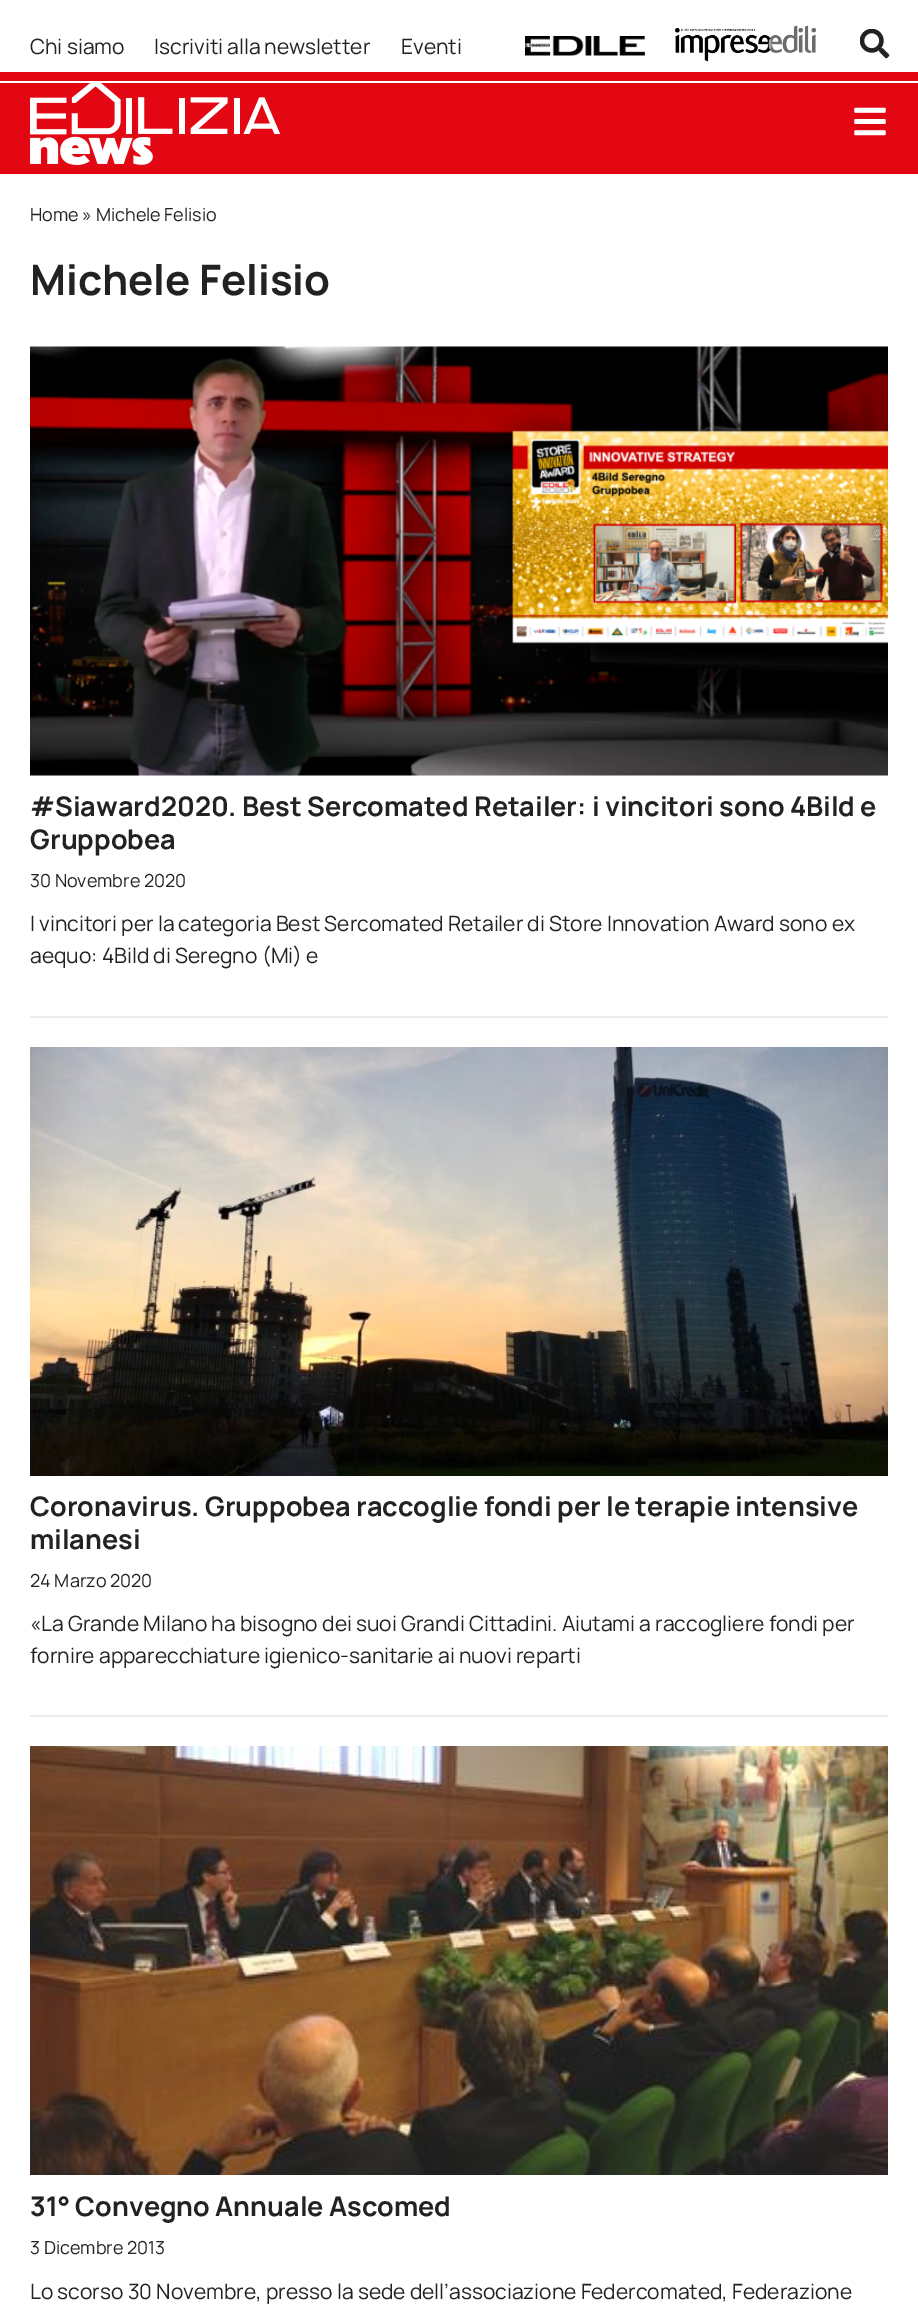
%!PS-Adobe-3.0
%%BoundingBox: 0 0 918 2313
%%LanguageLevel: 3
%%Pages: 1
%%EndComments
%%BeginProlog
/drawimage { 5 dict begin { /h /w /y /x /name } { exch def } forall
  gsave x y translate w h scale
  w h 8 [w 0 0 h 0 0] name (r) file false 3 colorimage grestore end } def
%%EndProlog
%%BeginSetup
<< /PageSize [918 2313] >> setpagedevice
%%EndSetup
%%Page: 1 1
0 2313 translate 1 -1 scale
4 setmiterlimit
1 setgray
0 0 918 2313 rectfill
(images/1.raw) 525 36 120 20 drawimage
(images/2.raw) 675 25 141 37 drawimage
(images/3.raw) 860 29 30 30 drawimage
0.89 0.024 0.075 setrgbcolor
0 72 918 9 rectfill
0 83 918 91 rectfill
(images/4.raw) 30 83 251 82 drawimage
(images/5.raw) 854 107 32 29 drawimage
0.929 0.914 0.91 setrgbcolor
30 1016 858 2 rectfill
(images/6.raw) 30 346 858 430 drawimage
30 1715 858 2 rectfill
(images/7.raw) 30 1047 858 429 drawimage
(images/8.raw) 30 1746 858 429 drawimage
/Manrope-Regular [21 0 0 -21 0 0] selectfont
0.133 setgray
30 54 moveto (Chi siamo) show
154 54 moveto (Iscriviti alla newsletter) show
401 54 moveto (Eventi) show
/Manrope-Regular [18 0 0 -18 0 0] selectfont
30 221 moveto (Home » Michele Felisio) show
/Manrope-Bold [42 0 0 -42 0 0] selectfont
30 295 moveto (Michele Felisio) show
/Manrope-Bold [27 0 0 -27 0 0] selectfont
30 816 moveto (#Siaward2020. Best Sercomated Retailer: i vincitori sono 4Bild e) show
30 849 moveto (Gruppobea) show
/Manrope-Regular [18 0 0 -18 0 0] selectfont
30 887 moveto (30 Novembre 2020) show
/Manrope-Regular [21 0 0 -21 0 0] selectfont
30 931 moveto (I vincitori per la categoria Best Sercomated Retailer di Store Innovation Award sono ex) show
30 963 moveto (aequo: 4Bild di Seregno \(Mi\) e) show
/Manrope-Bold [27 0 0 -27 0 0] selectfont
30 1516 moveto (Coronavirus. Gruppobea raccoglie fondi per le terapie intensive) show
30 1549 moveto (milanesi) show
/Manrope-Regular [18 0 0 -18 0 0] selectfont
30 1587 moveto (24 Marzo 2020) show
/Manrope-Regular [21 0 0 -21 0 0] selectfont
30 1631 moveto («La Grande Milano ha bisogno dei suoi Grandi Cittadini. Aiutami a raccogliere fondi per) show
30 1663 moveto (fornire apparecchiature igienico-sanitarie ai nuovi reparti) show
/Manrope-Bold [27 0 0 -27 0 0] selectfont
30 2216 moveto (31° Convegno Annuale Ascomed) show
/Manrope-Regular [18 0 0 -18 0 0] selectfont
30 2254 moveto (3 Dicembre 2013) show
/Manrope-Regular [21 0 0 -21 0 0] selectfont
30 2299 moveto (Lo scorso 30 Novembre, presso la sede dell’associazione Federcomated, Federazione) show
showpage
%%EOF
